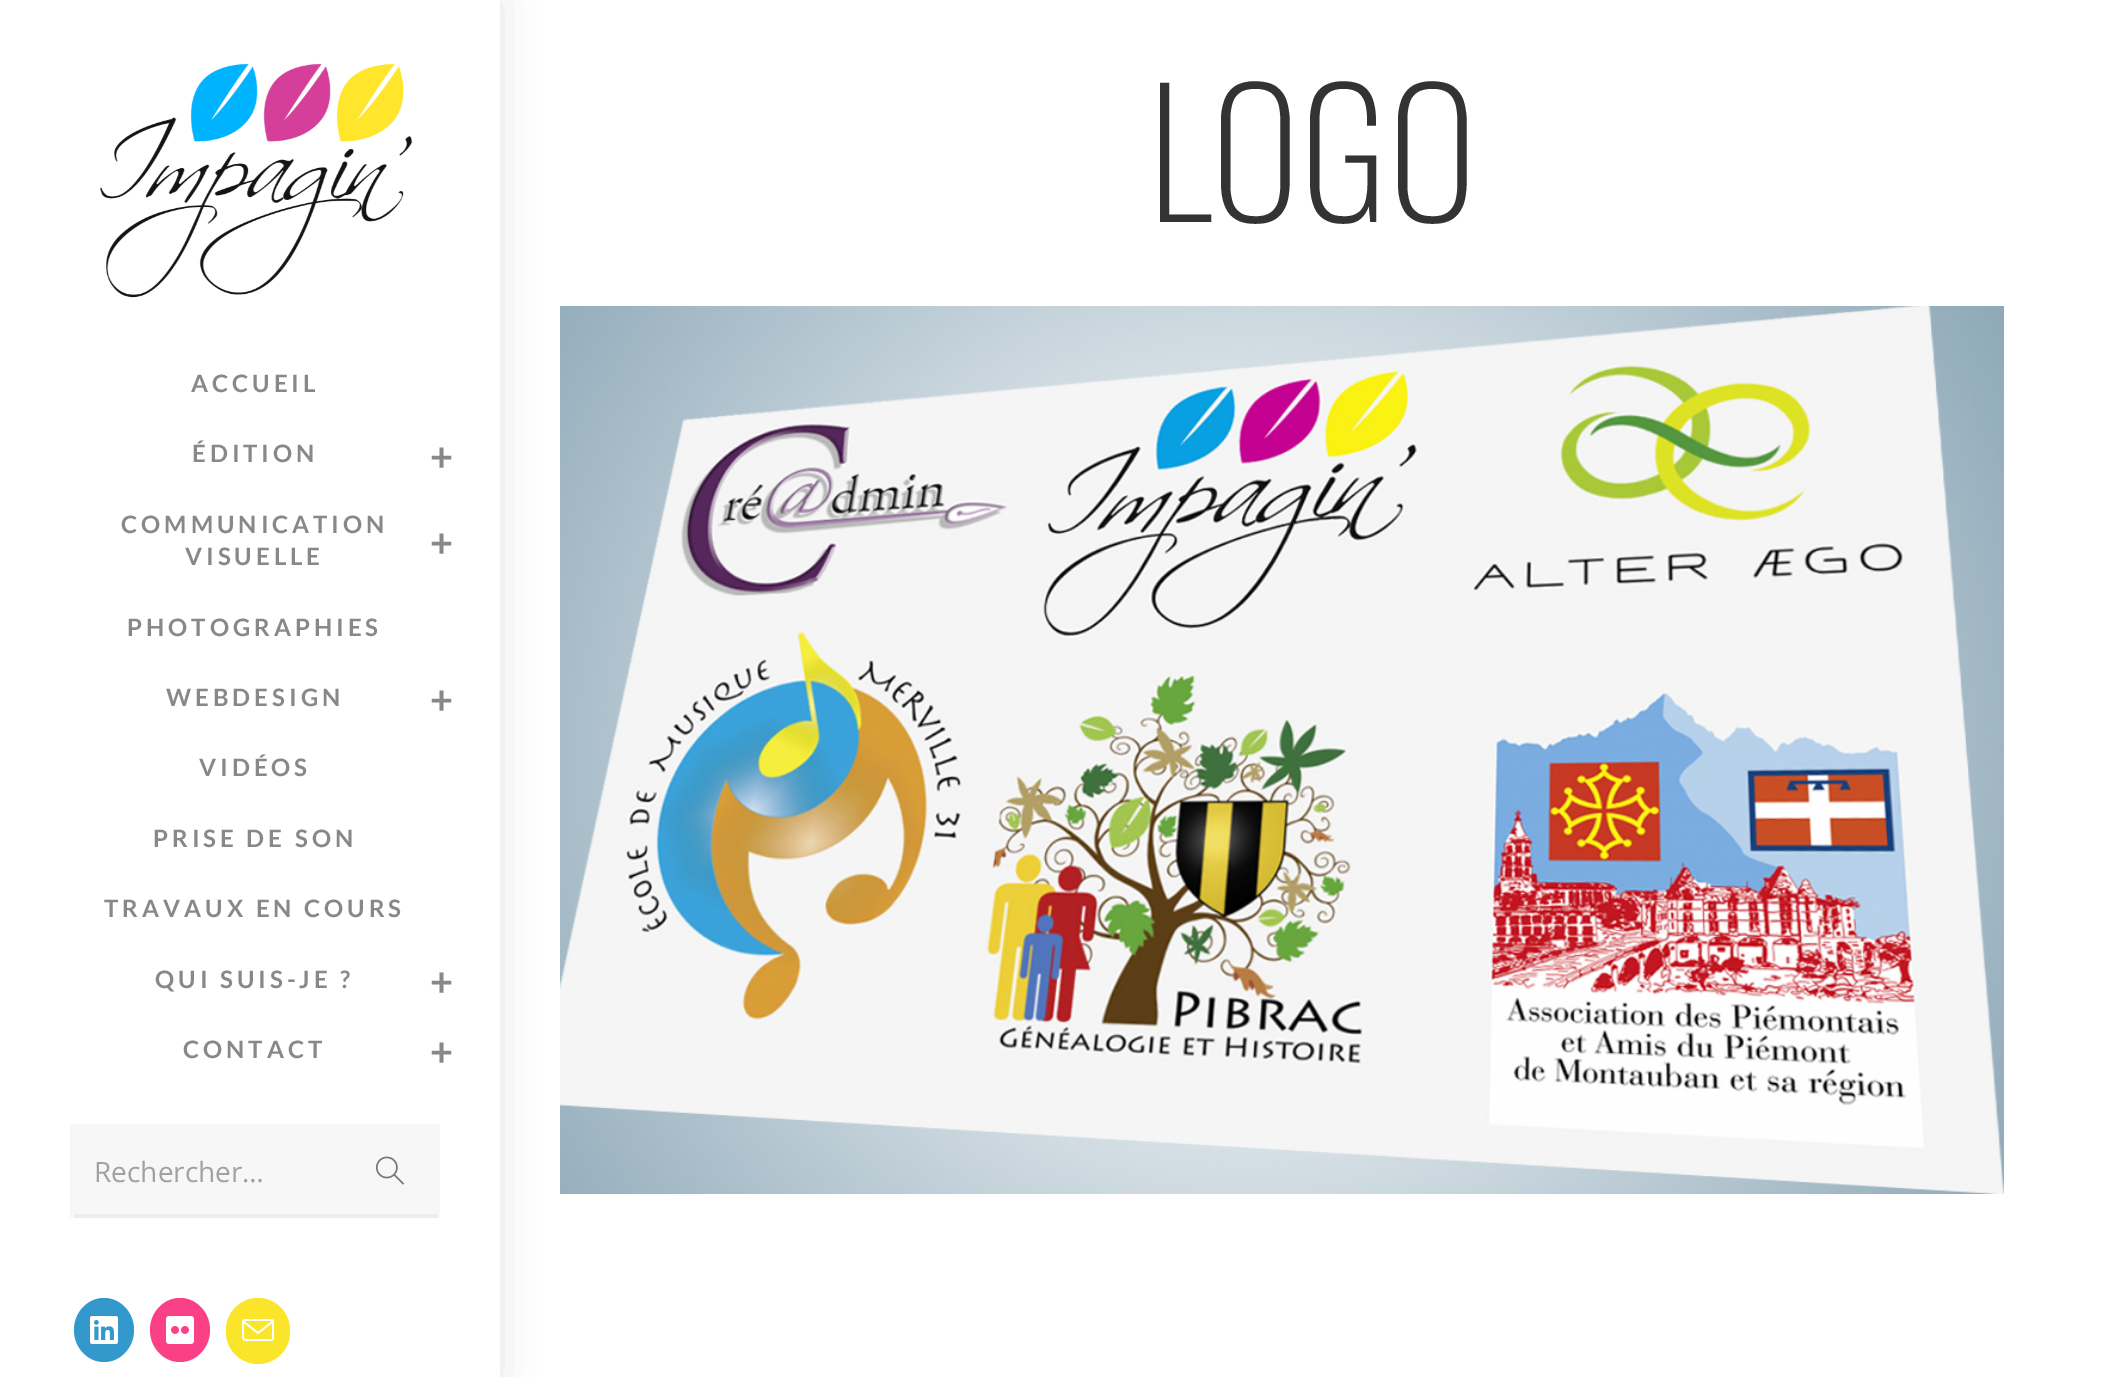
%!PS-Adobe-3.0
%%BoundingBox: 0 0 2123 1377
%%LanguageLevel: 3
%%Pages: 1
%%EndComments
%%BeginProlog
/setalpha { dup .setfillconstantalpha .setstrokeconstantalpha } def
/rrect { 5 dict begin { /r /h /w /y /x } { exch def } forall
  x r add y moveto x w add y 2 copy h add r arct x w add y h add x 1 index r arct
  x y h add x y r arct x y 2 copy exch w add exch r arct closepath end } def
/softshadow { 12 dict begin { /a /b /q /h /w /y /x } { exch def } forall gsave /was 0 def
  9 -2 -9 { dup b mul 4 div /e exch def 1 sub .425 mul 2.718 exch exp 1 add a .99 .min exch div /now exch def
    1 1 now sub 1 was sub div sub setalpha /was now def
    w h .min e 2 mul add 0 gt { x e sub y e sub w e 2 mul add h e 2 mul add
      q e add b .6 mul add w h .min 2 div e add .min 0 .max rrect fill } if } for grestore end } def
/drawimage { 5 dict begin { /h /w /y /x /name } { exch def } forall
  gsave x y translate w h scale
  w h 8 [w 0 0 h 0 0] name (r) file false 3 colorimage grestore end } def
%%EndProlog
%%BeginSetup
<< /PageSize [2123 1377] /PageUsesTransparency true >> setpagedevice
%%EndSetup
%%Page: 1 1
0 .pushpdf14devicefilter
0 1377 translate 1 -1 scale
4 setmiterlimit
1 setgray
0 0 2123 1377 rectfill
(images/1.raw) 560 306 1444 888 drawimage
0 setgray
0 0 500 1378 0 20 0.1 softshadow
1 setgray
0 0 500 1377 rectfill
(images/2.raw) 100 63 313 235 drawimage
0.969 setgray
70 1124 370 94 rectfill
(images/3.raw) 375 1156 29 29 drawimage
0.929 setgray
74 1214 364 4 rectfill
0.2 0.6 0.8 setrgbcolor
newpath 104 1298 moveto 120.5 1298 134 1312.5 134 1330 curveto 134 1347.5 120.5 1362 104 1362 curveto 87.5 1362 74 1347.5 74 1330 curveto 74 1312.5 87.5 1298 104 1298 curveto closepath fill
(images/4.raw) 90 1316 28 28 drawimage
0.98 0.251 0.525 setrgbcolor
newpath 180 1298 moveto 196.5 1298 210 1312.5 210 1330 curveto 210 1347.5 196.5 1362 180 1362 curveto 163.5 1362 150 1347.5 150 1330 curveto 150 1312.5 163.5 1298 180 1298 curveto closepath fill
(images/5.raw) 166 1316 28 28 drawimage
0.984 0.898 0.165 setrgbcolor
226 1298 64 66 32 rrect fill
(images/6.raw) 242 1319 33 22 drawimage
/Oswald-ExtraLight [172 0 0 -172 0 0] selectfont
0.2 setgray
1147 222 moveto (LOGO) show
/Lato-Bold [24 0 0 -24 0 0] selectfont
0.533 setgray
191 392 moveto 4 0 (ACCUEIL) ashow
192 462 moveto 4 0 (ÉDITION) ashow
/Lato-Bold [40 0 0 -40 0 0] selectfont
430 471 moveto 4 0 (+) ashow
/Lato-Bold [24 0 0 -24 0 0] selectfont
121 533 moveto 4 0 (COMMUNICATION) ashow
/Lato-Bold [40 0 0 -40 0 0] selectfont
430 557 moveto 4 0 (+) ashow
/Lato-Bold [24 0 0 -24 0 0] selectfont
185 565 moveto 4 0 (VISUELLE) ashow
127 636 moveto 4 0 (PHOTOGRAPHIES) ashow
166 706 moveto 4 0 (WEBDESIGN) ashow
/Lato-Bold [40 0 0 -40 0 0] selectfont
430 714 moveto 4 0 (+) ashow
/Lato-Bold [24 0 0 -24 0 0] selectfont
199 776 moveto 4 0 (VIDÉOS) ashow
153 847 moveto 4 0 (PRISE DE SON) ashow
104 917 moveto 4 0 (TRAVAUX EN COURS) ashow
155 988 moveto 4 0 (QUI SUIS-JE ?) ashow
/Lato-Bold [40 0 0 -40 0 0] selectfont
430 996 moveto 4 0 (+) ashow
/Lato-Bold [24 0 0 -24 0 0] selectfont
183 1058 moveto 4 0 (CONTACT) ashow
/Lato-Bold [40 0 0 -40 0 0] selectfont
430 1066 moveto 4 0 (+) ashow
/OpenSans-Regular [28 0 0 -28 0 0] selectfont
0.631 setgray
94 1182 moveto (Rechercher…) show
.poppdf14devicefilter showpage
%%EOF
